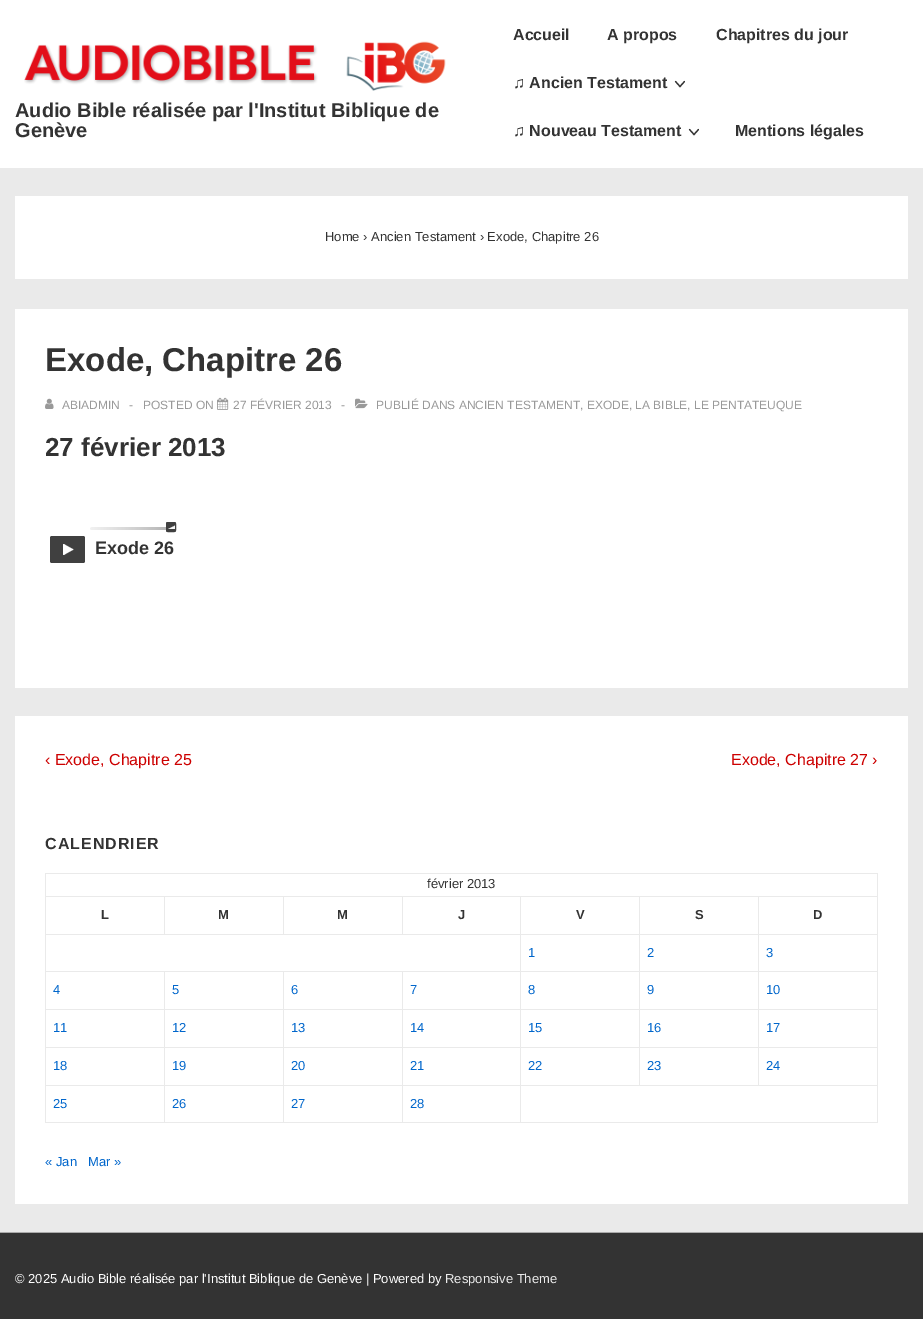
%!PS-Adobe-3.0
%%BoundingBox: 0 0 923 1319
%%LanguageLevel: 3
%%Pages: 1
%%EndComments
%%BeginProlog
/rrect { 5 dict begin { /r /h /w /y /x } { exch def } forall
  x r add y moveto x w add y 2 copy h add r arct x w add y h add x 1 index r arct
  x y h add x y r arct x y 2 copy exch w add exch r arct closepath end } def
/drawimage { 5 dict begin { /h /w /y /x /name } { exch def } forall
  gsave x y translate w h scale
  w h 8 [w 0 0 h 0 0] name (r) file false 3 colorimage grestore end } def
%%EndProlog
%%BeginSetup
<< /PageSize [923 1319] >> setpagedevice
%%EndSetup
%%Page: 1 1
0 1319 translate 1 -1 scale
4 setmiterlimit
0.918 setgray
0 0 923 1319 rectfill
1 setgray
0 0 923 168 rectfill
(images/1.raw) 24 41 422 50 drawimage
0.2 setgray
1.2 setlinewidth
1 setlinecap
newpath 675.5 81.5 moveto 680 86.5 lineto 684.5 81.5 lineto stroke
newpath 689.5 129.5 moveto 694 134.5 lineto 698.5 129.5 lineto stroke
1 setgray
15 196 893 83 rectfill
15 309 893 379 rectfill
(images/2.raw) 45 398 9 11 drawimage
(images/3.raw) 217 397 12 13 drawimage
(images/4.raw) 355 398 13 11 drawimage
(images/5.raw) 90 527 76 3 drawimage
0.251 setgray
166 522 10 10 2 rrect fill
(images/6.raw) 168 525 7 4 drawimage
1 setlinewidth
0 setlinecap
166.5 522.5 9 9 1.5 rrect stroke
50 536 35 27 2 rrect fill
(images/7.raw) 63 544 11 11 drawimage
1 setgray
15 716 893 488 rectfill
0.918 setgray
45 873 833 1 rectfill
877 873 1 250 rectfill
45 1122 833 1 rectfill
45 873 1 250 rectfill
758 896 120 1 rectfill
758 934 120 1 rectfill
758 971 120 1 rectfill
758 1009 120 1 rectfill
758 1047 120 1 rectfill
520 1085 358 1 rectfill
758 1047 1 39 rectfill
639 1047 120 1 rectfill
758 1009 1 39 rectfill
639 1009 120 1 rectfill
758 971 1 39 rectfill
639 971 120 1 rectfill
758 934 1 38 rectfill
639 934 120 1 rectfill
758 896 1 39 rectfill
639 896 120 1 rectfill
639 1047 1 39 rectfill
520 1047 120 1 rectfill
639 1009 1 39 rectfill
520 1009 120 1 rectfill
639 971 1 39 rectfill
520 971 120 1 rectfill
639 934 1 38 rectfill
520 934 120 1 rectfill
639 896 1 39 rectfill
520 896 120 1 rectfill
520 1085 1 38 rectfill
402 1085 119 1 rectfill
520 1047 1 39 rectfill
402 1047 119 1 rectfill
520 1009 1 39 rectfill
402 1009 119 1 rectfill
520 971 1 39 rectfill
402 971 119 1 rectfill
520 934 1 38 rectfill
45 934 476 1 rectfill
520 896 1 39 rectfill
402 896 119 1 rectfill
402 896 1 39 rectfill
283 896 120 1 rectfill
283 896 1 39 rectfill
164 896 120 1 rectfill
164 896 1 39 rectfill
45 896 120 1 rectfill
402 1085 1 38 rectfill
283 1085 120 1 rectfill
402 1047 1 39 rectfill
283 1047 120 1 rectfill
402 1009 1 39 rectfill
283 1009 120 1 rectfill
402 971 1 39 rectfill
283 971 120 1 rectfill
283 1085 1 38 rectfill
164 1085 120 1 rectfill
283 1047 1 39 rectfill
164 1047 120 1 rectfill
283 1009 1 39 rectfill
164 1009 120 1 rectfill
283 971 1 39 rectfill
164 971 120 1 rectfill
164 1085 1 38 rectfill
45 1085 120 1 rectfill
164 1047 1 39 rectfill
45 1047 120 1 rectfill
164 1009 1 39 rectfill
45 1009 120 1 rectfill
164 971 1 39 rectfill
45 971 120 1 rectfill
0.2 setgray
0 1233 923 86 rectfill
0.667 setgray
0 1232 923 1 rectfill
/LiberationSans-Bold [20 0 0 -20 0 0] selectfont
0.2 setgray
15 117 moveto (Audio Bible réalisée par l'Institut Biblique de) show
15 137 moveto (Genève) show
/LiberationSans-Bold [16 0 0 -16 0 0] selectfont
513 40 moveto (Accueil) show
607 40 moveto (A propos) show
716 40 moveto (Chapitres du jour) show
513 88 moveto (♫ Ancien Testament) show
513 136 moveto (♫ Nouveau Testament) show
735 136 moveto (Mentions légales) show
/LiberationSans-Regular [13 0 0 -13 0 0] selectfont
325 241 moveto (Home › Ancien Testament › Exode, Chapitre 26) show
/LiberationSans-Bold [33 0 0 -33 0 0] selectfont
45 371 moveto (Exode, Chapitre 26) show
/LiberationSans-Regular [12 0 0 -12 0 0] selectfont
0.6 setgray
62 409 moveto (ABIADMIN) show
129 409 moveto (-) show
143 409 moveto (POSTED ON) show
233 409 moveto (27 FÉVRIER 2013) show
341 409 moveto (-) show
376 409 moveto (PUBLIÉ DANS ANCIEN TESTAMENT, EXODE, LA BIBLE, LE PENTATEUQUE) show
/LiberationSans-Bold [26 0 0 -26 0 0] selectfont
0.2 setgray
45 456 moveto (27 février 2013) show
/LiberationSans-Bold [18 0 0 -18 0 0] selectfont
95 554 moveto (Exode 26) show
/LiberationSans-Regular [16 0 0 -16 0 0] selectfont
0.804 0 0 setrgbcolor
45 765 moveto (‹ Exode, Chapitre 25) show
731 765 moveto (Exode, Chapitre 27 ›) show
/LiberationSans-Bold [16 0 0 -16 0 0] selectfont
0.2 setgray
45 849 moveto 1 0 (CALENDRIER) ashow
/LiberationSans-Regular [13 0 0 -13 0 0] selectfont
427 888 moveto (février 2013) show
/LiberationSans-Bold [13 0 0 -13 0 0] selectfont
101 919 moveto (L) show
218 919 moveto (M) show
337 919 moveto (M) show
458 919 moveto (J) show
576 919 moveto (V) show
695 919 moveto (S) show
813 919 moveto (D) show
/LiberationSans-Regular [13 0 0 -13 0 0] selectfont
0 0.4 0.8 setrgbcolor
528 957 moveto (1) show
647 957 moveto (2) show
766 957 moveto (3) show
53 994 moveto (4) show
172 994 moveto (5) show
291 994 moveto (6) show
410 994 moveto (7) show
528 994 moveto (8) show
647 994 moveto (9) show
766 994 moveto (10) show
53 1032 moveto (11) show
172 1032 moveto (12) show
291 1032 moveto (13) show
410 1032 moveto (14) show
528 1032 moveto (15) show
647 1032 moveto (16) show
766 1032 moveto (17) show
53 1070 moveto (18) show
172 1070 moveto (19) show
291 1070 moveto (20) show
410 1070 moveto (21) show
528 1070 moveto (22) show
647 1070 moveto (23) show
766 1070 moveto (24) show
53 1108 moveto (25) show
172 1108 moveto (26) show
291 1108 moveto (27) show
410 1108 moveto (28) show
45 1166 moveto (« Jan) show
88 1166 moveto (Mar ») show
1 setgray
15 1283 moveto (© 2025 Audio Bible réalisée par l'Institut Biblique de Genève | Powered by) show
0.918 setgray
445 1283 moveto (Responsive Theme) show
showpage
%%EOF
